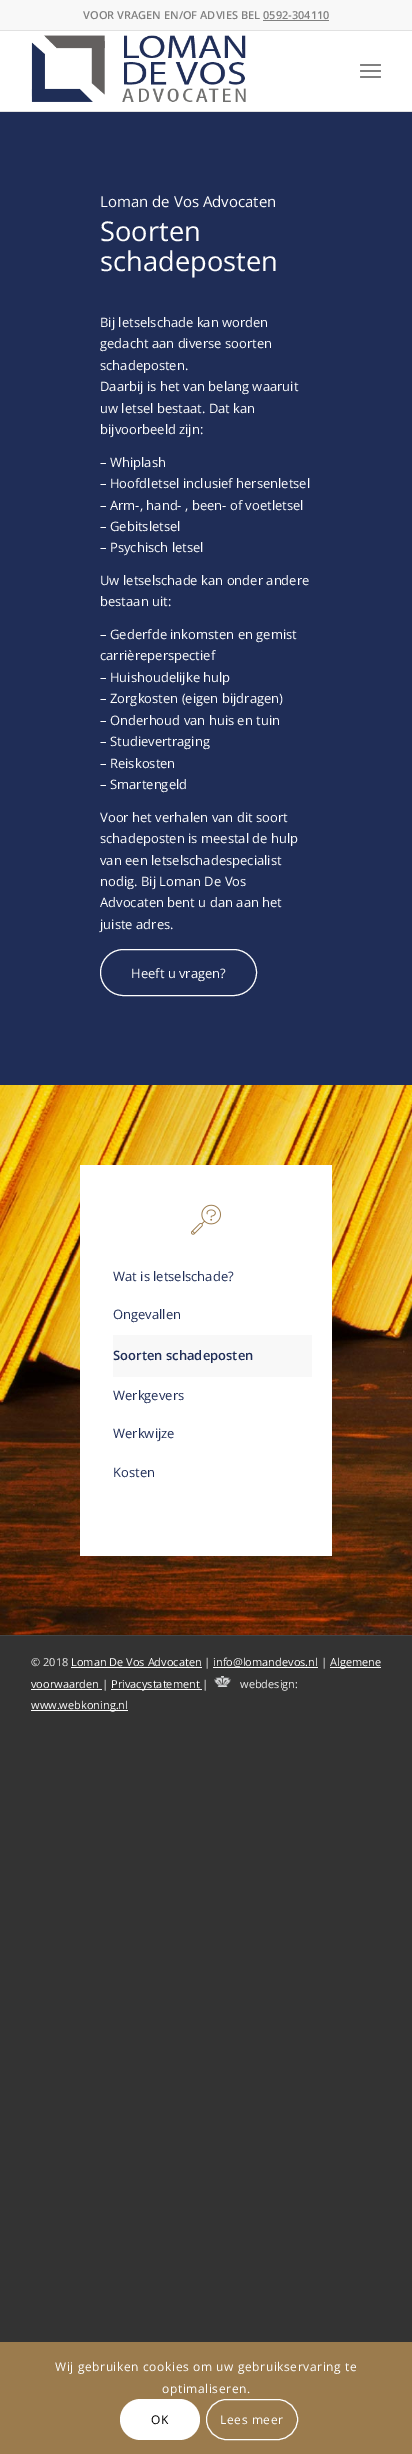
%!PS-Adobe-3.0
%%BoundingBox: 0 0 412 2454
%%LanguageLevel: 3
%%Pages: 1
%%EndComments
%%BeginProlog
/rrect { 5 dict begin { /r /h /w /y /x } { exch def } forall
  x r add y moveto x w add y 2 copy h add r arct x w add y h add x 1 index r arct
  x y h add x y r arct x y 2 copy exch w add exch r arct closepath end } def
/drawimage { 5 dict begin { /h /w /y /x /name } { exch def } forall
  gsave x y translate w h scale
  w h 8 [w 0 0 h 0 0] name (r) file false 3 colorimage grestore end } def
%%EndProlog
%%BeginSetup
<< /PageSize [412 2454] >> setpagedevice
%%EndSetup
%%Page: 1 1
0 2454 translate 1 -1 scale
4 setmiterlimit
0.2 setgray
0 0 412 2454 rectfill
1 setgray
0 31 412 80 rectfill
0.973 setgray
0 0 412 30 rectfill
0.882 setgray
0 30 412 1 rectfill
0.502 setgray
263 20 66 1 rectfill
0.882 setgray
0 111 412 1 rectfill
(images/1.raw) 31 35 215 67 drawimage
0.502 setgray
360 70 21 2 1 rrect fill
360 64 21 2 1 rrect fill
360 76 21 2 1 rrect fill
0.122 0.176 0.341 setrgbcolor
0 112 412 973 rectfill
1 setgray
100.5 949.5 156 46 23 rrect stroke
(images/2.raw) 0 1085 412 550 drawimage
80 1165 252 391 rectfill
(images/3.raw) 191 1204 30 31 drawimage
0.973 setgray
113 1335 199 42 rectfill
0.267 setgray
0 1635 412 1 rectfill
1 setgray
71 1667 131 1 rectfill
213 1667 105 1 rectfill
330 1667 51 1 rectfill
31 1689 71 1 rectfill
111 1689 91 1 rectfill
(images/4.raw) 214 1676 17 11 drawimage
31 1710 97 1 rectfill
0.608 0.482 0.302 setrgbcolor
0 2342 412 112 rectfill
1 setgray
120 2399 80 41 20.5 rrect fill
206.5 2399.5 91 40 20 rrect stroke
/OpenSans-SemiBold [11 0 0 -11 0 0] selectfont
0.502 setgray
83 19 moveto (VOOR VRAGEN EN/OF ADVIES BEL 0592-304110) show
/OpenSans-Regular [15 0 0 -15 0 0] selectfont
1 setgray
100 207 moveto (Loman de Vos Advocaten) show
/OpenSans-Regular [27.25 0 0 -27.25 0 0] selectfont
100 241 moveto (Soorten) show
100 271 moveto (schadeposten) show
/OpenSans-Regular [13 0 0 -13 0 0] selectfont
100 327 moveto (Bij letselschade kan worden) show
100 348 moveto (gedacht aan diverse soorten) show
100 370 moveto (schadeposten.) show
100 391 moveto (Daarbij is het van belang waaruit) show
100 413 moveto (uw letsel bestaat. Dat kan) show
100 434 moveto (bijvoorbeeld zijn:) show
100 467 moveto (– Whiplash) show
100 488 moveto (– Hoofdletsel inclusief hersenletsel) show
100 510 moveto (– Arm-, hand- , been- of voetletsel) show
100 531 moveto (– Gebitsletsel) show
100 552 moveto (– Psychisch letsel) show
100 585 moveto (Uw letselschade kan onder andere) show
100 606 moveto (bestaan uit:) show
100 639 moveto (– Gederfde inkomsten en gemist) show
100 660 moveto (carrièreperspectief) show
100 682 moveto (– Huishoudelijke hulp) show
100 703 moveto (– Zorgkosten \(eigen bijdragen\)) show
100 725 moveto (– Onderhoud van huis en tuin) show
100 746 moveto (– Studievertraging) show
100 768 moveto (– Reiskosten) show
100 789 moveto (– Smartengeld) show
100 822 moveto (Voor het verhalen van dit soort) show
100 843 moveto (schadeposten is meestal de hulp) show
100 865 moveto (van een letselschadespecialist) show
100 886 moveto (nodig. Bij Loman De Vos) show
100 907 moveto (Advocaten bent u dan aan het) show
100 929 moveto (juiste adres.) show
131 978 moveto (Heeft u vragen?) show
0.122 0.176 0.341 setrgbcolor
113 1281 moveto (Wat is letselschade?) show
113 1319 moveto (Ongevallen) show
/OpenSans-SemiBold [13 0 0 -13 0 0] selectfont
113 1360 moveto (Soorten schadeposten) show
/OpenSans-Regular [13 0 0 -13 0 0] selectfont
113 1400 moveto (Werkgevers) show
113 1438 moveto (Werkwijze) show
113 1477 moveto (Kosten) show
/OpenSans-Regular [11 0 0 -11 0 0] selectfont
0.933 setgray
31 1666 moveto (© 2018) show
1 setgray
71 1666 moveto (Loman De Vos Advocaten) show
0.933 setgray
204 1666 moveto (|) show
1 setgray
213 1666 moveto (info@lomandevos.nl) show
0.933 setgray
321 1666 moveto (|) show
1 setgray
330 1666 moveto (Algemene) show
31 1688 moveto (voorwaarden) show
0.933 setgray
102 1688 moveto (|) show
1 setgray
111 1688 moveto (Privacystatement) show
0.933 setgray
202 1688 moveto (|) show
240 1688 moveto (webdesign:) show
1 setgray
31 1709 moveto (www.webkoning.nl) show
/OpenSans-Regular [12 0 0 -12 0 0] selectfont
55 2371 moveto 0.6 0 (Wij gebruiken cookies om uw gebruikservaring te) ashow
162 2393 moveto 0.6 0 (optimaliseren.) ashow
0 setgray
151 2424 moveto 0.6 0 (OK) ashow
1 setgray
220 2424 moveto 0.6 0 (Lees meer) ashow
showpage
%%EOF
